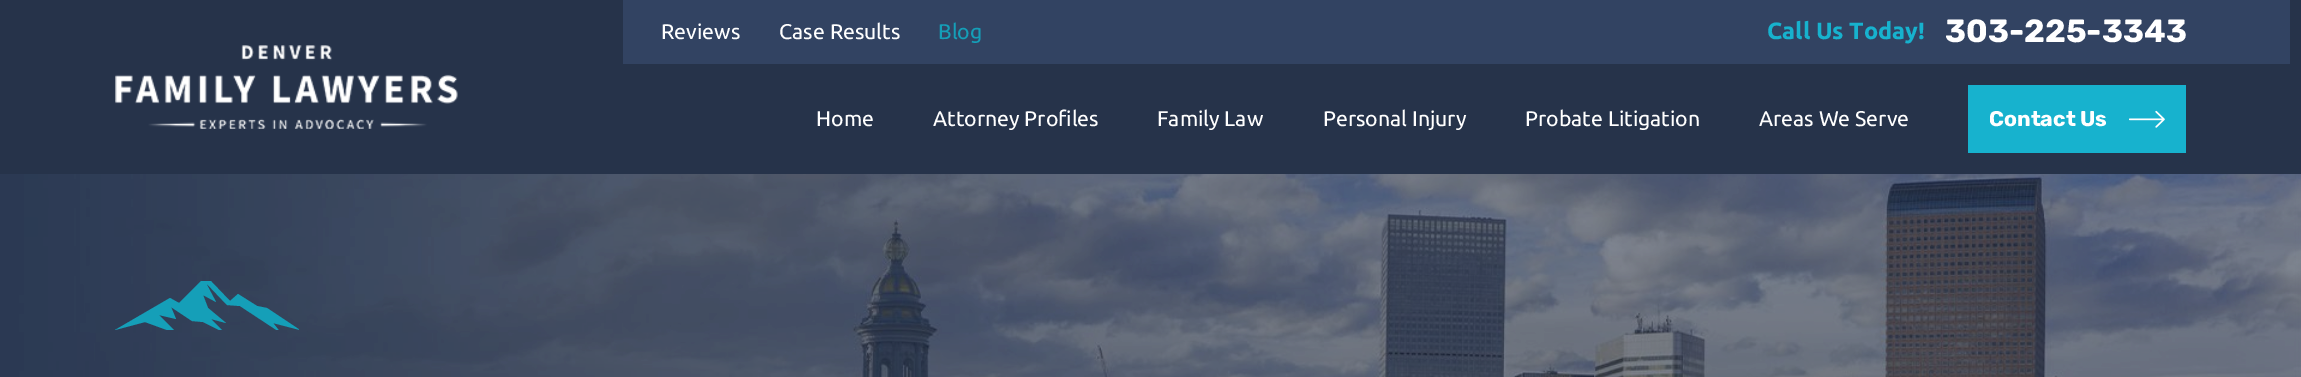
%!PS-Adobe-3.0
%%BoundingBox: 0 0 2301 377
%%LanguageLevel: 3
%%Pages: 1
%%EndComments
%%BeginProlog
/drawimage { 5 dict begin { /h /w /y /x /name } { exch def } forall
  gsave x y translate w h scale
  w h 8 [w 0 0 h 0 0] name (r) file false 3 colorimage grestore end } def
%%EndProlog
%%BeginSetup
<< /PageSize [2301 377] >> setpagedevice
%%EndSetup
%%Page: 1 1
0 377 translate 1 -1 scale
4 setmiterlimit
0.149 0.2 0.29 setrgbcolor
0 0 2301 377 rectfill
(images/1.raw) 115 45 343 84 drawimage
0.196 0.263 0.384 setrgbcolor
623 0 1667 64 rectfill
0.09 0.698 0.808 setrgbcolor
1968 85 218 68 rectfill
(images/2.raw) 2129 110 36 18 drawimage
(images/3.raw) 0 174 2301 203 drawimage
gsave
115 281 184 49 rectclip
0.082 0.624 0.722 setrgbcolor
newpath 145 322 moveto 115 330 lineto 170 298 lineto 179 303 lineto 206 276 lineto 230 301 lineto 238 294 lineto 257 306 lineto 267 308 lineto 300 330 lineto 273 323 lineto 281 333 lineto 240 306 lineto 227 305 lineto 206 283 lineto 216 302 lineto 203 295 lineto 208 308 lineto 226 323 lineto 211 319 lineto 225 333 lineto 203 322 lineto 192 321 lineto 171 307 lineto 176 319 lineto 159 315 lineto 178 334 lineto closepath fill
grestore
/Ubuntu-Regular [21.25 0 0 -21.25 0 0] selectfont
1 setgray
661 39 moveto (Reviews) show
779 39 moveto (Case Results) show
0.082 0.624 0.722 setrgbcolor
938 39 moveto (Blog) show
/Ubuntu-Bold [23.5 0 0 -23.5 0 0] selectfont
0.09 0.698 0.808 setrgbcolor
1767 39 moveto (Call Us Today!) show
/Rubik-Bold [32 0 0 -32 0 0] selectfont
1 setgray
1945 42 moveto (303-225-3343) show
/Ubuntu-Regular [21.25 0 0 -21.25 0 0] selectfont
816 126 moveto (Home) show
933 126 moveto (Attorney Profiles) show
1157 126 moveto (Family Law) show
1323 126 moveto (Personal Injury) show
1525 126 moveto (Probate Litigation) show
1759 126 moveto (Areas We Serve) show
/Rubik-Bold [21.25 0 0 -21.25 0 0] selectfont
1989 126 moveto (Contact Us) show
showpage
%%EOF
